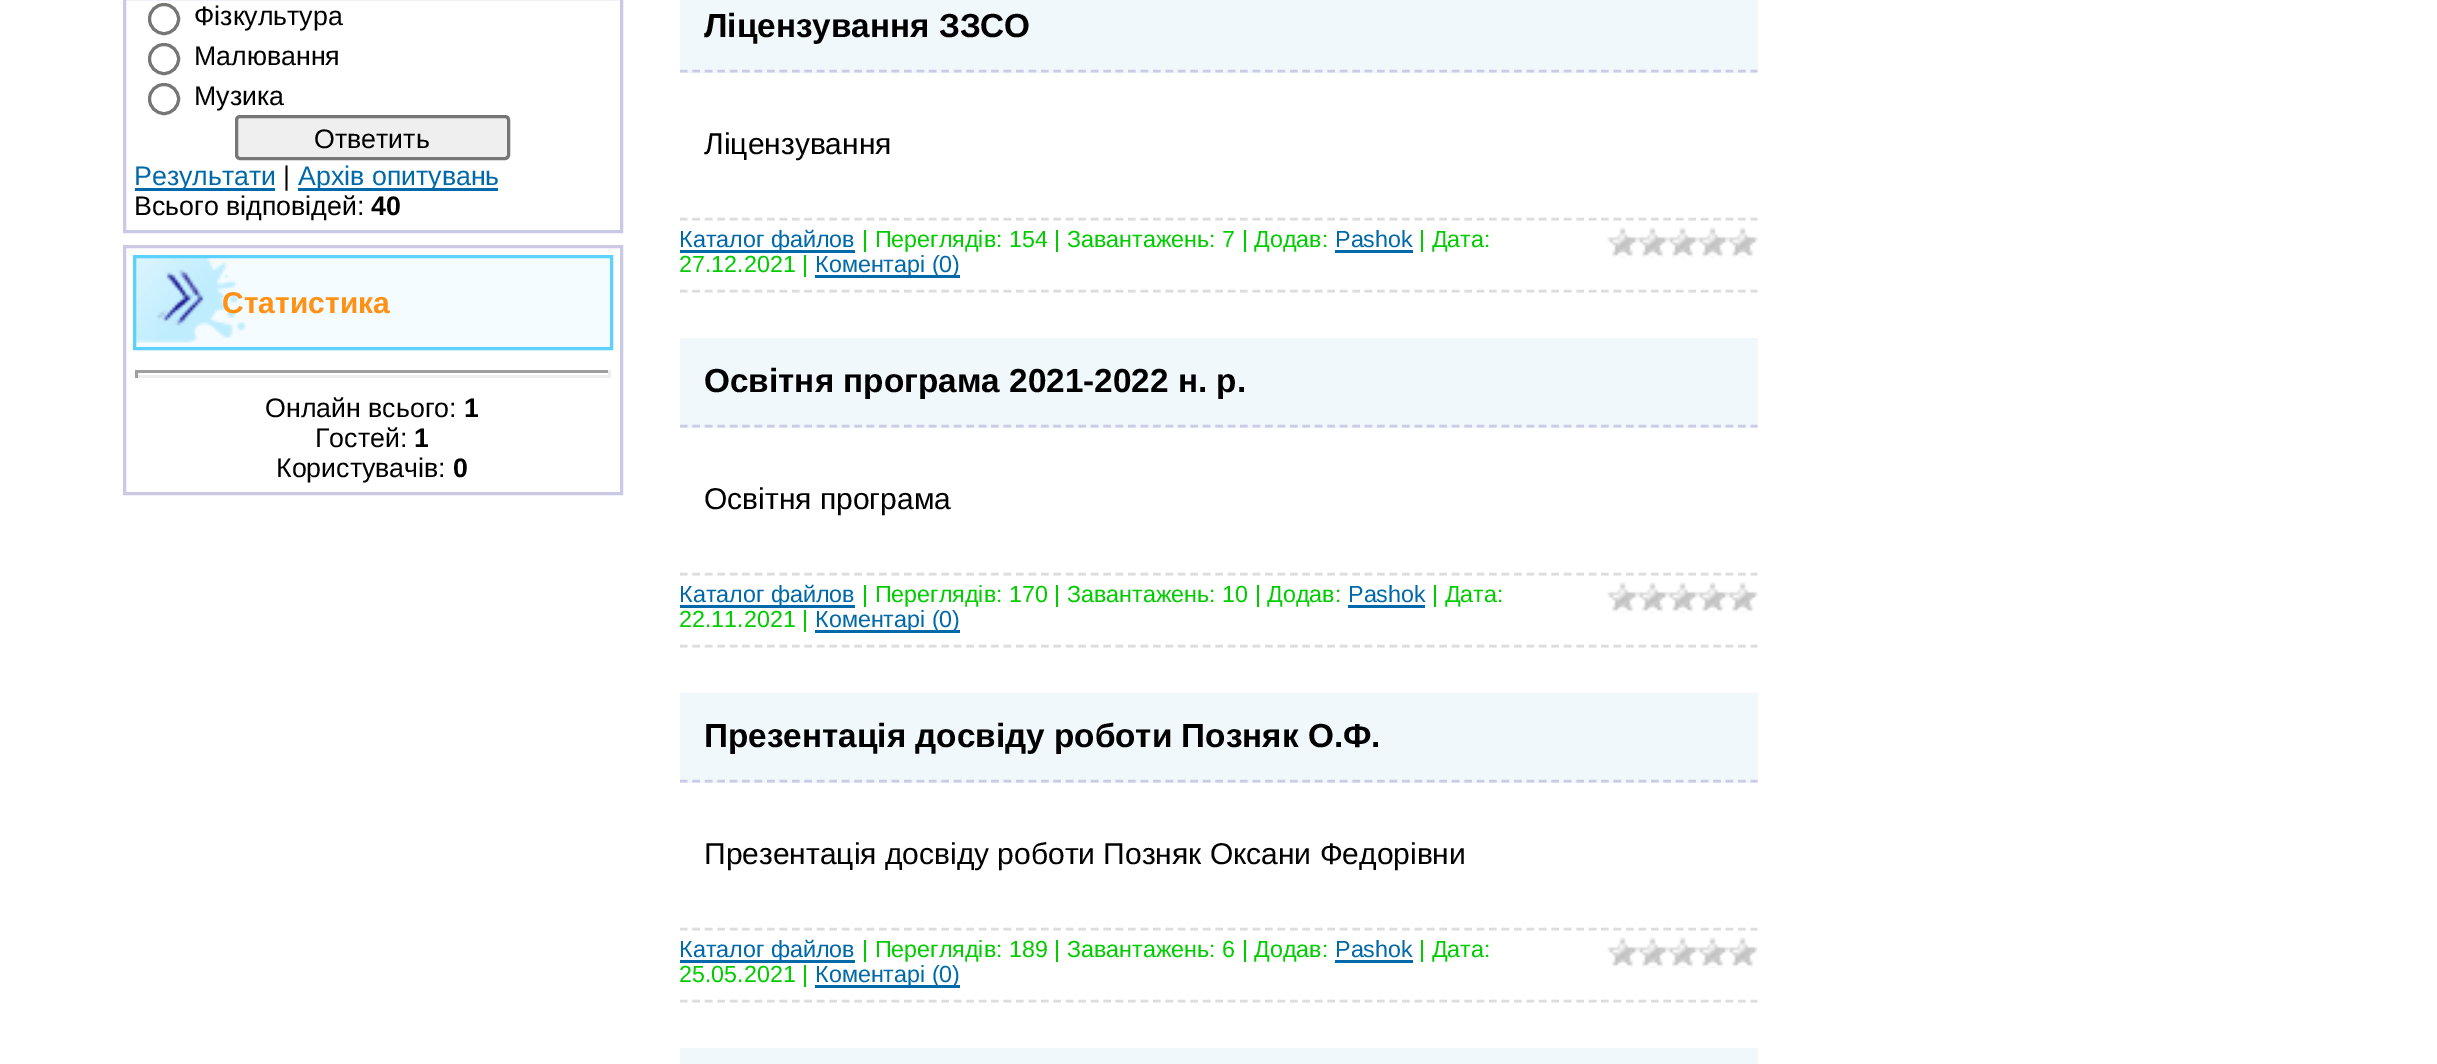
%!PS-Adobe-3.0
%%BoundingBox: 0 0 2437 1064
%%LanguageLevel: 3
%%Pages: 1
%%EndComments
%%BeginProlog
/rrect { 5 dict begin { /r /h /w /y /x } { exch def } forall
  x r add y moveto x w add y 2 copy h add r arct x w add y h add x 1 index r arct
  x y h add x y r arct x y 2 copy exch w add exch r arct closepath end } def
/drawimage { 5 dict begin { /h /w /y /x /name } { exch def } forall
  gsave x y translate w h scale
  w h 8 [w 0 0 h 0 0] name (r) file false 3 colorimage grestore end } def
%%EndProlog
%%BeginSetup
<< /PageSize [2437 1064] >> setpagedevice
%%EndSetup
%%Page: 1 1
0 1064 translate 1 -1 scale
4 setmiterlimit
1 setgray
0 0 2437 1064 rectfill
0.792 0.792 0.902 setrgbcolor
3 setlinewidth
124.5 -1.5 497 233 rectstroke
0.463 setgray
newpath 164 19 14.5 0 360 arc closepath stroke
newpath 164 59 14.5 0 360 arc closepath stroke
newpath 164 99 14.5 0 360 arc closepath stroke
0.937 setgray
236.5 116.5 272 42 3.5 rrect gsave fill grestore
0.463 setgray
stroke
0 0.412 0.663 setrgbcolor
135 188 140 3 rectfill
298 188 200 3 rectfill
0.792 0.792 0.902 setrgbcolor
124.5 246.5 497 247 rectstroke
0.961 0.988 1 setrgbcolor
136 258 474 89 rectfill
(images/1.raw) 136 258 110 85 drawimage
0.357 0.82 0.988 setrgbcolor
134.5 256.5 477 92 rectstroke
0.624 setgray
135 370 475 3 rectfill
0.933 setgray
608 370 3 8 rectfill
135 375 475 3 rectfill
0.624 setgray
135 370 3 8 rectfill
0.945 0.973 0.984 setrgbcolor
680 0 1078 73 rectfill
0.796 0.796 0.902 setrgbcolor
2.5 setlinewidth
[7.5 4.95] 0 setdash
newpath 680 71 moveto 1757.5 71 lineto stroke
0.867 setgray
newpath 680 219 moveto 1757.5 219 lineto stroke
newpath 680 291 moveto 1757.5 291 lineto stroke
0 0.412 0.663 setrgbcolor
680 250 175 3 rectfill
1335 250 78 3 rectfill
(images/2.raw) 1607 227 151 31 drawimage
815 275 145 3 rectfill
0.945 0.973 0.984 setrgbcolor
680 338 1078 90 rectfill
0.796 0.796 0.902 setrgbcolor
newpath 680 426 moveto 1757.5 426 lineto stroke
0.867 setgray
newpath 680 574 moveto 1757.5 574 lineto stroke
newpath 680 646 moveto 1757.5 646 lineto stroke
0 0.412 0.663 setrgbcolor
680 605 175 3 rectfill
1348 605 77 3 rectfill
(images/3.raw) 1607 582 151 31 drawimage
815 630 145 3 rectfill
0.945 0.973 0.984 setrgbcolor
680 693 1078 90 rectfill
0.796 0.796 0.902 setrgbcolor
newpath 680 781 moveto 1757.5 781 lineto stroke
0.867 setgray
newpath 680 929 moveto 1757.5 929 lineto stroke
newpath 680 1001 moveto 1757.5 1001 lineto stroke
0 0.412 0.663 setrgbcolor
680 960 175 3 rectfill
1335 960 78 3 rectfill
(images/4.raw) 1607 937 151 31 drawimage
815 985 145 3 rectfill
0.945 0.973 0.984 setrgbcolor
680 1048 1078 16 rectfill
/LiberationSans-Regular [26.75 0 0 -26.75 0 0] selectfont
0 setgray
194 25 moveto (Фізкультура) show
194 65 moveto (Малювання) show
194 105 moveto (Музика) show
314 148 moveto (Ответить) show
0 0.412 0.663 setrgbcolor
134 185 moveto (Результати) show
0 setgray
283 185 moveto (|) show
0 0.412 0.663 setrgbcolor
298 185 moveto (Архів опитувань) show
0 setgray
134 215 moveto (Всього відповідей:) show
/LiberationSans-Bold [26.75 0 0 -26.75 0 0] selectfont
371 215 moveto (40) show
/LiberationSans-Bold [30 0 0 -30 0 0] selectfont
1 0.569 0.082 setrgbcolor
222 313 moveto (Статистика) show
/LiberationSans-Regular [26.75 0 0 -26.75 0 0] selectfont
0 setgray
265 417 moveto (Онлайн всього:) show
/LiberationSans-Bold [26.75 0 0 -26.75 0 0] selectfont
464 417 moveto (1) show
/LiberationSans-Regular [26.75 0 0 -26.75 0 0] selectfont
315 447 moveto (Гостей:) show
/LiberationSans-Bold [26.75 0 0 -26.75 0 0] selectfont
414 447 moveto (1) show
/LiberationSans-Regular [26.75 0 0 -26.75 0 0] selectfont
276 477 moveto (Користувачів:) show
/LiberationSans-Bold [26.75 0 0 -26.75 0 0] selectfont
453 477 moveto (0) show
/LiberationSans-Bold [33.3 0 0 -33.3 0 0] selectfont
704 37 moveto (Ліцензування ЗЗСО) show
/LiberationSans-Regular [30 0 0 -30 0 0] selectfont
704 154 moveto (Ліцензування) show
/LiberationSans-Regular [23.3 0 0 -23.3 0 0] selectfont
0 0.412 0.663 setrgbcolor
679 247 moveto (Каталог файлов) show
0 0.8 0 setrgbcolor
862 247 moveto (| Переглядів: 154 | Завантажень: 7 | Додав:) show
0 0.412 0.663 setrgbcolor
1335 247 moveto (Pashok) show
0 0.8 0 setrgbcolor
1419 247 moveto (| Дата:) show
679 272 moveto (27.12.2021 |) show
0 0.412 0.663 setrgbcolor
815 272 moveto (Коментарі \(0\)) show
/LiberationSans-Bold [33.3 0 0 -33.3 0 0] selectfont
0 setgray
704 392 moveto (Освітня програма 2021-2022 н. р.) show
/LiberationSans-Regular [30 0 0 -30 0 0] selectfont
704 509 moveto (Освітня програма) show
/LiberationSans-Regular [23.3 0 0 -23.3 0 0] selectfont
0 0.412 0.663 setrgbcolor
679 602 moveto (Каталог файлов) show
0 0.8 0 setrgbcolor
862 602 moveto (| Переглядів: 170 | Завантажень: 10 | Додав:) show
0 0.412 0.663 setrgbcolor
1348 602 moveto (Pashok) show
0 0.8 0 setrgbcolor
1432 602 moveto (| Дата:) show
679 627 moveto (22.11.2021 |) show
0 0.412 0.663 setrgbcolor
815 627 moveto (Коментарі \(0\)) show
/LiberationSans-Bold [33.3 0 0 -33.3 0 0] selectfont
0 setgray
704 747 moveto (Презентація досвіду роботи Позняк О.Ф.) show
/LiberationSans-Regular [30 0 0 -30 0 0] selectfont
704 864 moveto (Презентація досвіду роботи Позняк Оксани Федорівни) show
/LiberationSans-Regular [23.3 0 0 -23.3 0 0] selectfont
0 0.412 0.663 setrgbcolor
679 957 moveto (Каталог файлов) show
0 0.8 0 setrgbcolor
862 957 moveto (| Переглядів: 189 | Завантажень: 6 | Додав:) show
0 0.412 0.663 setrgbcolor
1335 957 moveto (Pashok) show
0 0.8 0 setrgbcolor
1419 957 moveto (| Дата:) show
679 982 moveto (25.05.2021 |) show
0 0.412 0.663 setrgbcolor
815 982 moveto (Коментарі \(0\)) show
showpage
%%EOF
